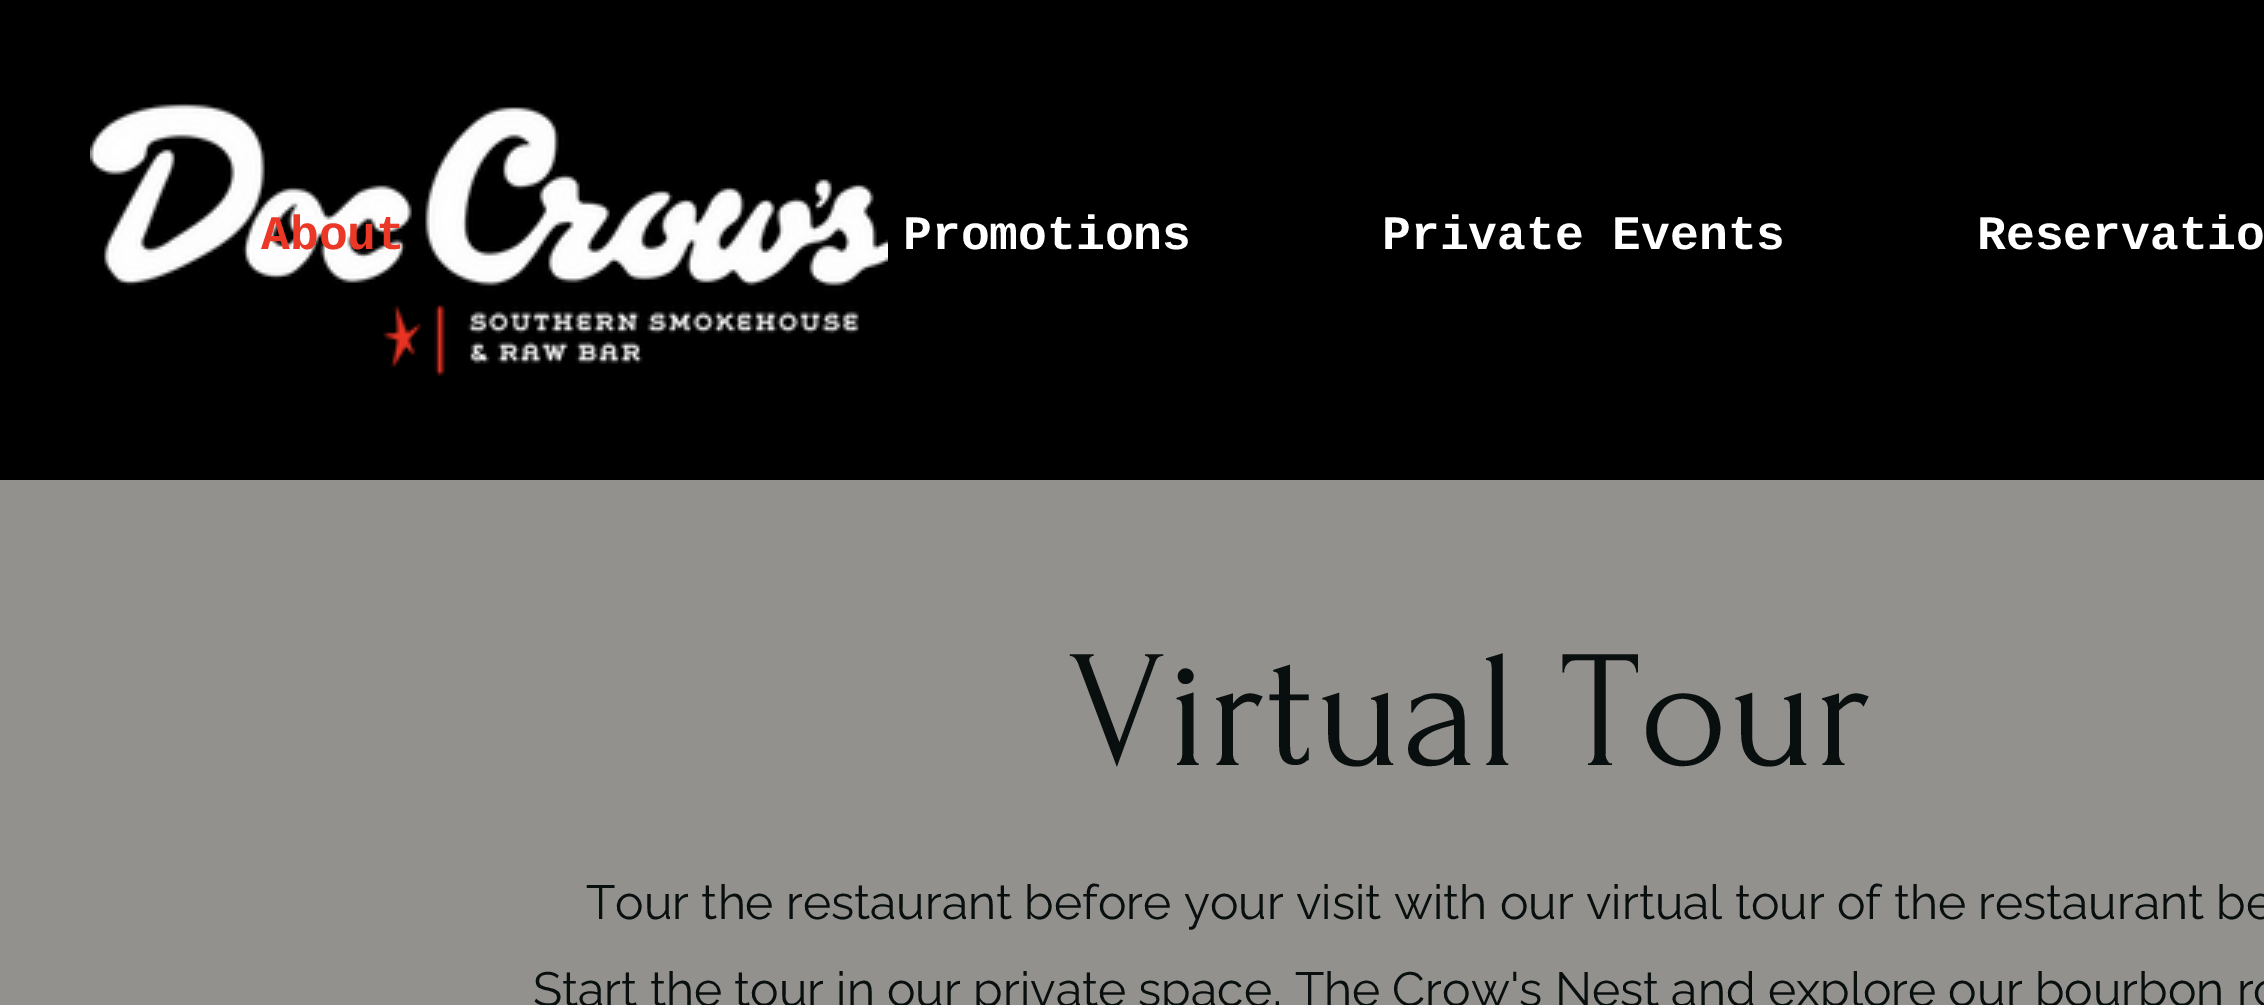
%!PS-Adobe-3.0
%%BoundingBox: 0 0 2264 1005
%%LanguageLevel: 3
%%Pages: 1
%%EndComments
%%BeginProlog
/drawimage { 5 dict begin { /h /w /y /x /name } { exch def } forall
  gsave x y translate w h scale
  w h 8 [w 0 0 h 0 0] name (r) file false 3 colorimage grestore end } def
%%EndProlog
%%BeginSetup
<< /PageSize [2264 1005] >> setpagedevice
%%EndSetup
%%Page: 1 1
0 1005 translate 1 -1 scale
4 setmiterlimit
0.573 0.569 0.553 setrgbcolor
0 0 2264 1005 rectfill
0 setgray
0 0 2264 480 rectfill
(images/1.raw) 90 103 798 273 drawimage
/LiberationMono-Bold [48 0 0 -48 0 0] selectfont
0.922 0.216 0.145 setrgbcolor
261 249 moveto (About) show
1 setgray
903 249 moveto (Promotions) show
1382 249 moveto (Private Events) show
1977 249 moveto (Reservatio) show
/Forum-Regular [168 0 0 -168 0 0] selectfont
0.035 0.059 0.059 setrgbcolor
1068 765 moveto (Virtual Tour) show
/Raleway-Regular [48 0 0 -48 0 0] selectfont
586 919 moveto (Tour the restaurant before your visit with our virtual tour of the restaurant be) show
533 1006 moveto (Start the tour in our private space, The Crow's Nest and explore our bourbon ro) show
showpage
%%EOF
